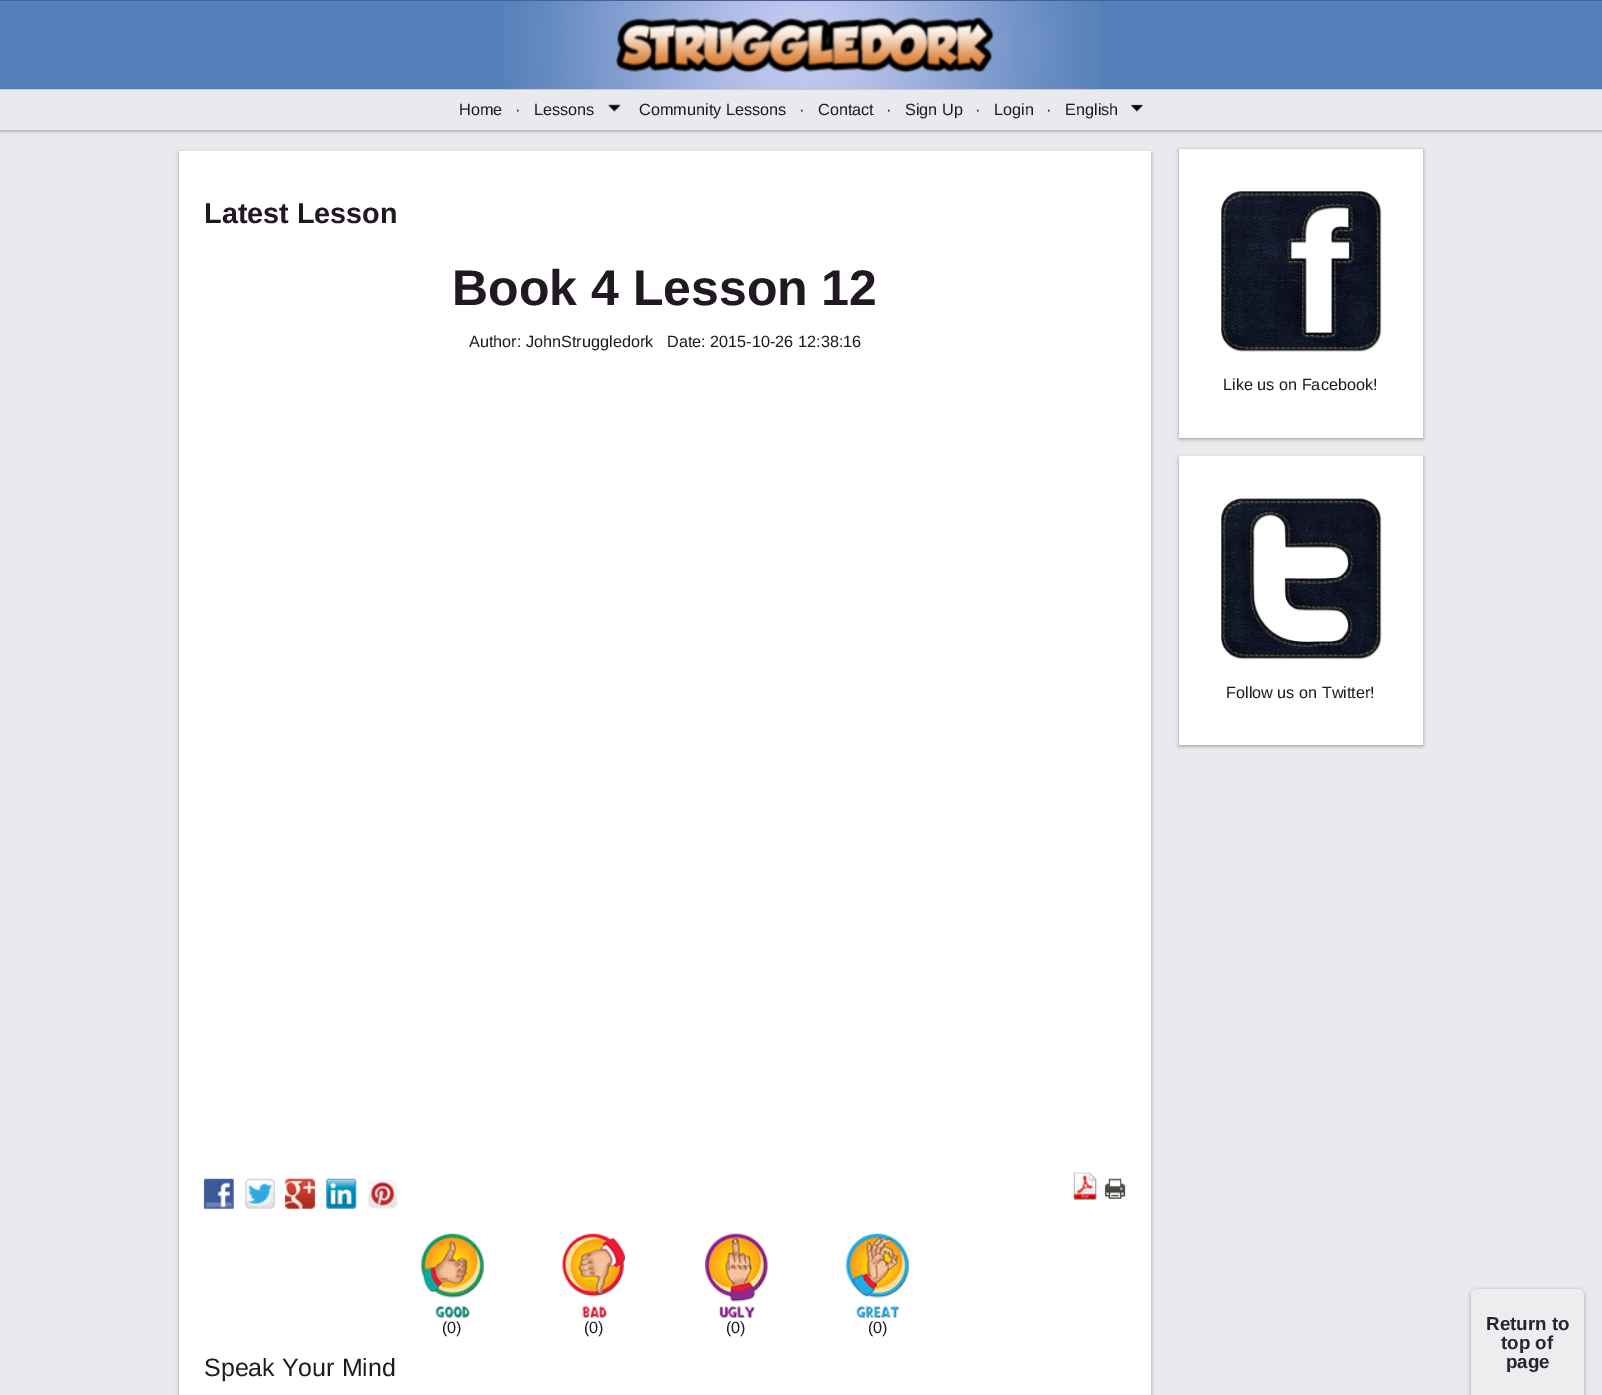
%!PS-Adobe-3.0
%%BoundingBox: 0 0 1602 1395
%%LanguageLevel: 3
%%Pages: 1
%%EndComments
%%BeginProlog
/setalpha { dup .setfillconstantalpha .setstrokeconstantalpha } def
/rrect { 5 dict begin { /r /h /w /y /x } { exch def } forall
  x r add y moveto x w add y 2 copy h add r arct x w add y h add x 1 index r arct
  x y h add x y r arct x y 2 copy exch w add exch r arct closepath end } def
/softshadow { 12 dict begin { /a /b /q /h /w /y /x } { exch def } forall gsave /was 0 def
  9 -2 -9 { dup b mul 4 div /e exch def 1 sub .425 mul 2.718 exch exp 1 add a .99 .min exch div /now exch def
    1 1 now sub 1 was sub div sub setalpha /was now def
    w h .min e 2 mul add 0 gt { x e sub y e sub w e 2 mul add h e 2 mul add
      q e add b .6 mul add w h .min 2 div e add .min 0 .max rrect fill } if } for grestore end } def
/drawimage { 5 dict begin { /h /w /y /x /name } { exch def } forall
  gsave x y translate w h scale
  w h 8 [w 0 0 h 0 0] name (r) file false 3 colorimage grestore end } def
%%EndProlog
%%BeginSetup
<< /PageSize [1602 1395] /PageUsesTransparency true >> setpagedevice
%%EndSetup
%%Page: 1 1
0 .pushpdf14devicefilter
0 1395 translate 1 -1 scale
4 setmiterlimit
0.914 0.918 0.929 setrgbcolor
0 0 1602 1395 rectfill
0.133 0.098 0.098 setrgbcolor
0 1 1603 130 0 2 0.4 softshadow
0.267 0.38 0.616 setrgbcolor
0 0 1602 1 rectfill
0.329 0.498 0.722 setrgbcolor
0 1 1602 88 rectfill
(images/1.raw) 504 1 595 88 drawimage
(images/2.raw) 616 17 378 56 drawimage
0.792 0.792 0.812 setrgbcolor
newpath 0 89 moveto 0 90 lineto 1602 90 lineto 1602 129 lineto 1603 129 lineto 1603 89 lineto closepath fill
0.914 0.918 0.929 setrgbcolor
0 90 1602 40 rectfill
(images/3.raw) 608 104 13 8 drawimage
(images/4.raw) 1131 104 12 8 drawimage
0.133 0.098 0.098 setrgbcolor
179 153 972 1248 0 2 0.4 softshadow
1 setgray
179 151 972 1244 rectfill
(images/5.raw) 203 1178 31 31 drawimage
(images/6.raw) 245 1178 30 31 drawimage
(images/7.raw) 285 1178 30 31 drawimage
(images/8.raw) 326 1178 31 31 drawimage
(images/9.raw) 367 1179 31 30 drawimage
(images/10.raw) 1073 1172 24 28 drawimage
(images/11.raw) 1104 1178 22 21 drawimage
(images/12.raw) 421 1233 63 85 drawimage
(images/13.raw) 562 1233 63 85 drawimage
(images/14.raw) 705 1233 63 85 drawimage
(images/15.raw) 846 1233 63 85 drawimage
0.133 0.098 0.098 setrgbcolor
1179 150 244 289 0 2 0.4 softshadow
1 setgray
1179 149 244 289 rectfill
(images/16.raw) 1221 191 161 161 drawimage
0.133 0.098 0.098 setrgbcolor
1179 458 244 288 0 2 0.4 softshadow
1 setgray
1179 456 244 289 rectfill
(images/17.raw) 1221 498 161 162 drawimage
0.6 setgray
1471 1290 113 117 6 2 1 softshadow
0.929 0.929 0.941 setrgbcolor
1471 1289 113 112 6 rrect fill
/LiberationSans-Regular [16.25 0 0 -16.25 0 0] selectfont
0.133 0.098 0.098 setrgbcolor
459 115 moveto (Home) show
515 115 moveto (·) show
534 115 moveto (Lessons) show
639 115 moveto (Community Lessons) show
799 115 moveto (·) show
818 115 moveto (Contact) show
886 115 moveto (·) show
905 115 moveto (Sign Up) show
975 115 moveto (·) show
994 115 moveto (Login) show
1046 115 moveto (·) show
1065 115 moveto (English) show
/LiberationSans-Bold [28.75 0 0 -28.75 0 0] selectfont
0.129 0.098 0.133 setrgbcolor
204 223 moveto (Latest Lesson) show
/LiberationSans-Bold [50 0 0 -50 0 0] selectfont
452 305 moveto (Book 4 Lesson 12) show
/LiberationSans-Regular [16.25 0 0 -16.25 0 0] selectfont
469 347 moveto (Author: JohnStruggledork) show
667 347 moveto (Date: 2015-10-26 12:38:16) show
442 1333 moveto (\(0\)) show
584 1333 moveto (\(0\)) show
726 1333 moveto (\(0\)) show
868 1333 moveto (\(0\)) show
/LiberationSans-Regular [25 0 0 -25 0 0] selectfont
204 1376 moveto (Speak Your Mind) show
/LiberationSans-Regular [16.25 0 0 -16.25 0 0] selectfont
1223 390 moveto (Like us on Facebook!) show
1226 698 moveto (Follow us on Twitter!) show
/LiberationSans-Bold [18.75 0 0 -18.75 0 0] selectfont
0.145 0.145 0.196 setrgbcolor
1486 1330 moveto (Return to) show
1501 1349 moveto (top of) show
1506 1368 moveto (page) show
.poppdf14devicefilter showpage
%%EOF
